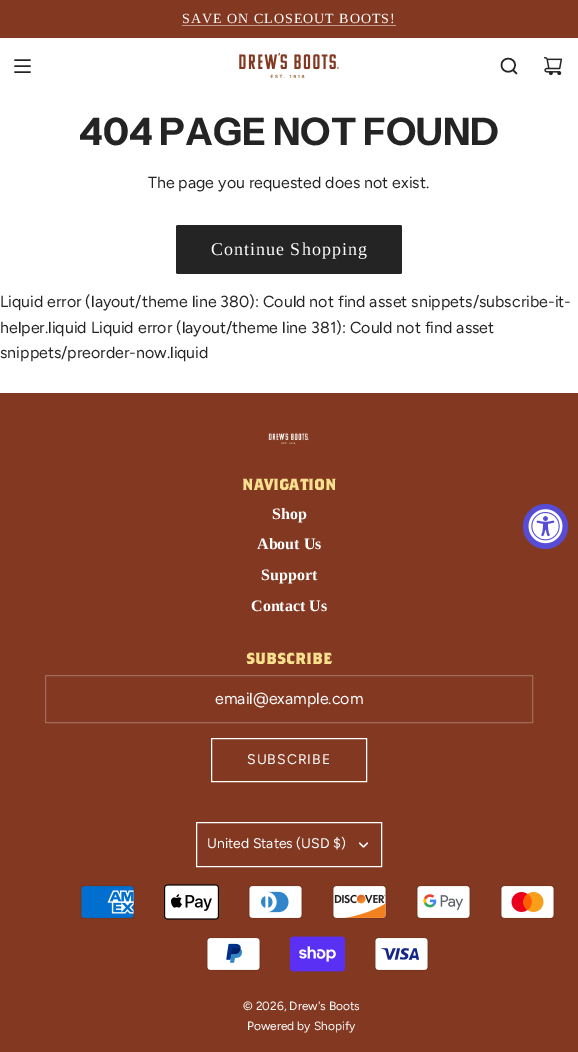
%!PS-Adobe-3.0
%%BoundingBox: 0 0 578 1052
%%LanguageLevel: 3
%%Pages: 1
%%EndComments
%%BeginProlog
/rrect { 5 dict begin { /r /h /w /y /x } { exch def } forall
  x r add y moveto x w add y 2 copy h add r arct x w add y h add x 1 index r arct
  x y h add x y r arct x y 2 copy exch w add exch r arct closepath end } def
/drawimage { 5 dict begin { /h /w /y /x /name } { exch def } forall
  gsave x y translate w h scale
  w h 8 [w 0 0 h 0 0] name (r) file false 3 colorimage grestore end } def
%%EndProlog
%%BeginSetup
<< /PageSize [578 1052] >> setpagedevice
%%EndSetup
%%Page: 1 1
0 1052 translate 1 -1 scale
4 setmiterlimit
1 setgray
0 0 578 1052 rectfill
0.514 0.224 0.129 setrgbcolor
0 0 578 38 rectfill
0.757 0.612 0.565 setrgbcolor
182 25 214 1 rectfill
0.141 setgray
1.5 setlinewidth
1 setlinecap
1 setlinejoin
newpath 15 60 moveto 30 60 lineto 15 66 moveto 30 66 lineto 15 72 moveto 30 72 lineto stroke
(images/1.raw) 239 53 100 25 drawimage
newpath 513 70 moveto 516.5 73.5 lineto 501.5 65 moveto 501.5 74 515 74 515 65 curveto 515 56.5 501.5 56.5 501.5 65 curveto closepath stroke
(images/2.raw) 543 56 20 20 drawimage
176 225 226 49 2 rrect fill
0.514 0.224 0.129 setrgbcolor
0 393 578 659 rectfill
(images/3.raw) 268 433 42 11 drawimage
0.635 0.42 0.349 setrgbcolor
1 setlinewidth
0 setlinecap
0 setlinejoin
45.5 675.5 487 47 rectstroke
1 setgray
211.5 738.5 155 43 rectstroke
196.5 822.5 185 44 rectstroke
1.2 setlinewidth
1 setlinecap
1 setlinejoin
newpath 359.5 843 moveto 363.5 847 lineto 367.5 843 lineto stroke
(images/4.raw) 80 885 55 34 drawimage
(images/5.raw) 164 884 55 36 drawimage
(images/6.raw) 248 885 55 34 drawimage
(images/7.raw) 332 885 55 34 drawimage
(images/8.raw) 416 885 55 34 drawimage
(images/9.raw) 500 885 55 34 drawimage
(images/10.raw) 206 937 55 34 drawimage
(images/11.raw) 290 936 55 36 drawimage
(images/12.raw) 374 937 55 34 drawimage
0.341 0.298 0.835 setrgbcolor
newpath 545.5 526.5 22.5 0 360 arc closepath fill
(images/13.raw) 528 509 35 35 drawimage
/LiberationSerif-Regular [14 0 0 -14 0 0] selectfont
1 setgray
182 23 moveto 1 0 (SAVE ON CLOSEOUT BOOTS!) ashow
/InstrumentSans-Bold [38 0 0 -38 0 0] selectfont
0.141 setgray
79 145 moveto (404 PAGE NOT FOUND) show
/Figtree-Regular [16 0 0 -16 0 0] selectfont
148 188 moveto (The page you requested does not exist.) show
/LiberationSerif-Regular [18 0 0 -18 0 0] selectfont
1 setgray
211 255 moveto 1 0 (Continue Shopping) ashow
/Figtree-Regular [16 0 0 -16 0 0] selectfont
0.141 setgray
0 307 moveto (Liquid error \(layout/theme line 380\): Could not find asset snippets/subscribe-it-) show
0 333 moveto (helper.liquid Liquid error \(layout/theme line 381\): Could not find asset) show
0 358 moveto (snippets/preorder-now.liquid) show
/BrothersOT-Bold [16 0 0 -16 0 0] selectfont
0.973 0.878 0.557 setrgbcolor
242 490 moveto (NAVIGATION) show
/LiberationSerif-Bold [16 0 0 -16 0 0] selectfont
1 setgray
272 519 moveto (Shop) show
257 549 moveto (About Us) show
261 580 moveto (Support) show
251 611 moveto (Contact Us) show
/BrothersOT-Bold [16 0 0 -16 0 0] selectfont
0.973 0.878 0.557 setrgbcolor
246 664 moveto (SUBSCRIBE) show
/Figtree-Regular [16 0 0 -16 0 0] selectfont
1 setgray
215 704 moveto (email@example.com) show
/Figtree-Regular [14 0 0 -14 0 0] selectfont
247 764 moveto 1 0 (SUBSCRIBE) ashow
207 848 moveto (United States \(USD $\)) show
/Figtree-Regular [12 0 0 -12 0 0] selectfont
243 1010 moveto (© 2026, Drew's Boots) show
247 1030 moveto (Powered by Shopify) show
showpage
%%EOF
